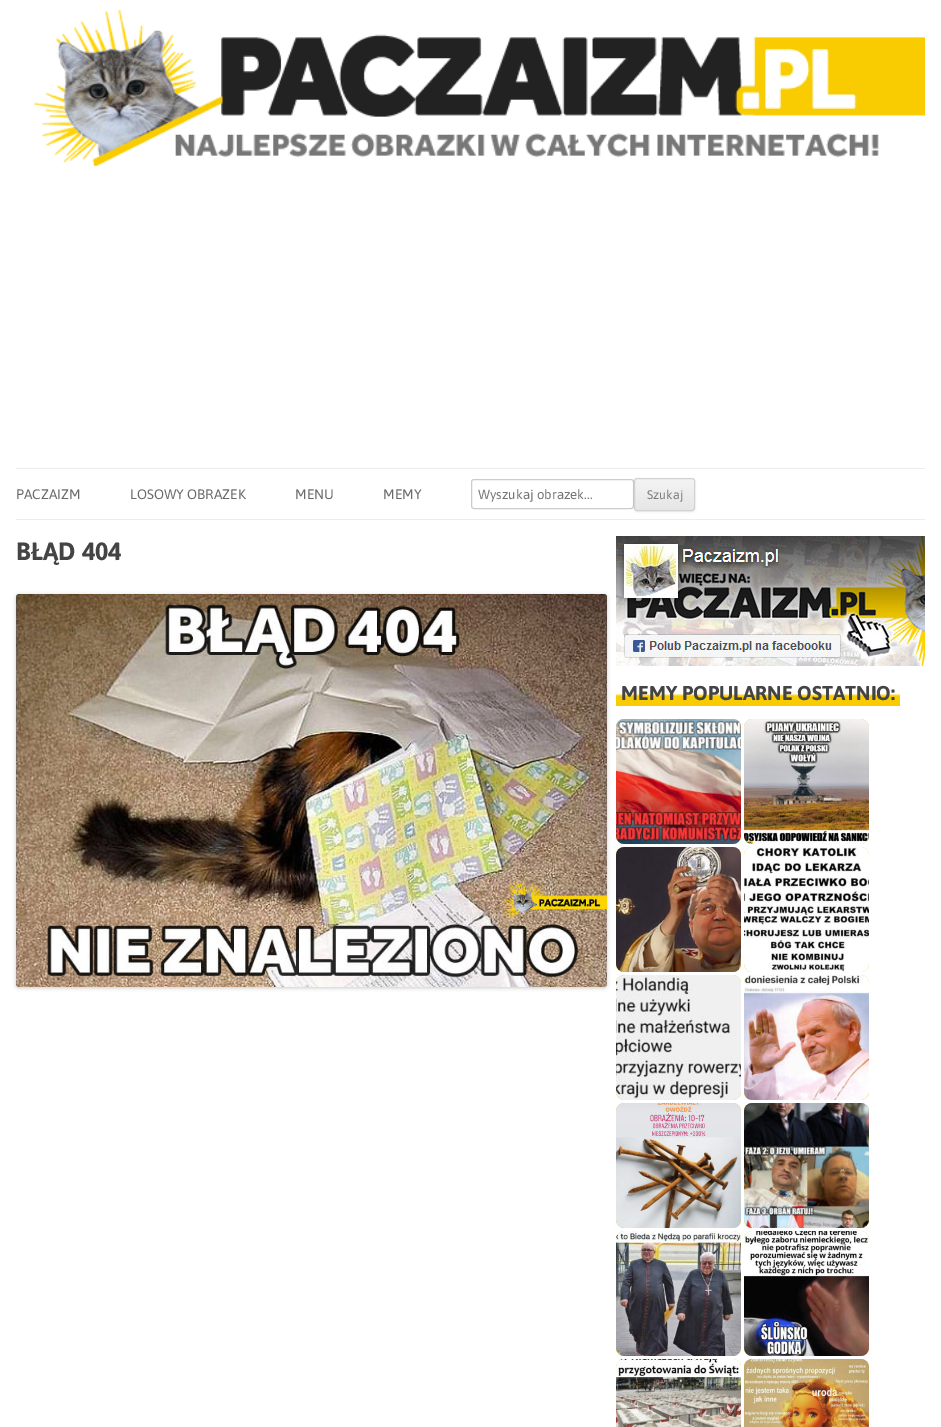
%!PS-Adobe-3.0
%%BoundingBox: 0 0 941 1427
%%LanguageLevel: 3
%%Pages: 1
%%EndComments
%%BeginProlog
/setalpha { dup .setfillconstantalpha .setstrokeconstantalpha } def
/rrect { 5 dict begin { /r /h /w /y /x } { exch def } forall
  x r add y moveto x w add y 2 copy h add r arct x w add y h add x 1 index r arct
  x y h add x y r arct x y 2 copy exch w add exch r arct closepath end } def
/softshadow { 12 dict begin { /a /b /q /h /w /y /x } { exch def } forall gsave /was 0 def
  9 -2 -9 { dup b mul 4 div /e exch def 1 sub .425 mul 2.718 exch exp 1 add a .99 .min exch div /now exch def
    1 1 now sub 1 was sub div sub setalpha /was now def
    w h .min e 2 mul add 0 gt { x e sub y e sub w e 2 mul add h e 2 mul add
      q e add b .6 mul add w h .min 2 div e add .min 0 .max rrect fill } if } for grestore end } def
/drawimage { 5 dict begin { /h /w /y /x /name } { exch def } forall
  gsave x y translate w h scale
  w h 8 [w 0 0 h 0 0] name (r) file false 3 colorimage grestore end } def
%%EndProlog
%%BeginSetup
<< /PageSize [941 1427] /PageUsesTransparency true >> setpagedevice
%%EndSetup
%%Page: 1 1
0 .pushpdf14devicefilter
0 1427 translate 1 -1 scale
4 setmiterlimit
1 setgray
0 0 941 1427 rectfill
(images/1.raw) 34 10 891 156 drawimage
0.929 setgray
16 468 909 1 rectfill
16 519 909 1 rectfill
0.8 setgray
471.5 479.5 162 29 2.5 rrect stroke
0.251 setgray
634 479 61 33 3 1 0.1 softshadow
gsave
634 478 61 33 3 rrect clip newpath
gsave newpath 634 479 moveto 695 479 lineto 695 510 lineto 634 510 lineto closepath clip newpath
<< /ShadingType 2 /ColorSpace /DeviceRGB /Coords [665 479 665 510] /Extend [true true] /Function << /FunctionType 2 /Domain [0 1] /C0 [0.957 0.957 0.957] /C1 [0.902 0.902 0.902] /N 1 >> >> shfill grestore
grestore
0.824 setgray
634.5 478.5 60 32 2.5 rrect stroke
0 setgray
16 595 591 393 3 2 0.2 softshadow
(images/2.raw) 16 594 591 393 drawimage
(images/3.raw) 616 536 309 130 drawimage
gsave newpath 616 694 moveto 900 694 lineto 900 706 lineto 616 706 lineto closepath clip newpath
<< /ShadingType 2 /ColorSpace /DeviceRGB /Coords [758 681 758 706] /Extend [true true] /Function << /FunctionType 3 /Domain [0 1] /Functions [<< /FunctionType 2 /Domain [0 1] /C0 [1 1 1] /C1 [1 1 1] /N 1 >> << /FunctionType 2 /Domain [0 1] /C0 [1 1 1] /C1 [0.973 0.8 0] /N 1 >> << /FunctionType 2 /Domain [0 1] /C0 [0.973 0.8 0] /C1 [0.973 0.8 0] /N 1 >>] /Bounds [0.5 0.6] /Encode [0 1 0 1 0 1] >> >> shfill grestore
0.973 0.804 0.02 setrgbcolor
616 719 125 125 8 rrect fill
(images/4.raw) 616 719 125 125 drawimage
744 719 125 125 8 rrect fill
(images/5.raw) 744 719 125 125 drawimage
616 847 125 125 8 rrect fill
(images/6.raw) 616 847 125 125 drawimage
744 847 125 125 8 rrect fill
(images/7.raw) 744 847 125 125 drawimage
616 975 125 125 8 rrect fill
(images/8.raw) 616 975 125 125 drawimage
744 975 125 125 8 rrect fill
(images/9.raw) 744 975 125 125 drawimage
616 1103 125 125 8 rrect fill
(images/10.raw) 616 1103 125 125 drawimage
744 1103 125 125 8 rrect fill
(images/11.raw) 744 1103 125 125 drawimage
616 1231 125 125 8 rrect fill
(images/12.raw) 616 1231 125 125 drawimage
744 1231 125 125 8 rrect fill
(images/13.raw) 744 1231 125 125 drawimage
(images/14.raw) 616 1359 125 68 drawimage
(images/15.raw) 744 1359 125 68 drawimage
/Asap-Regular [13.75 0 0 -13.75 0 0] selectfont
0.416 setgray
16 499 moveto (PACZAIZM) show
130 499 moveto (LOSOWY OBRAZEK) show
295 499 moveto (MENU) show
383 499 moveto (MEMY) show
/Asap-Regular [13.25 0 0 -13.25 0 0] selectfont
0.459 setgray
478 499 moveto (Wyszukaj obrazek...) show
/Asap-Regular [12.5 0 0 -12.5 0 0] selectfont
0.486 setgray
647 499 moveto (Szukaj) show
/Asap-Bold [25 0 0 -25 0 0] selectfont
0.267 setgray
16 560 moveto (BŁĄD 404) show
/Asap-Bold [20 0 0 -20 0 0] selectfont
621 700 moveto (MEMY POPULARNE OSTATNIO:) show
.poppdf14devicefilter showpage
%%EOF
